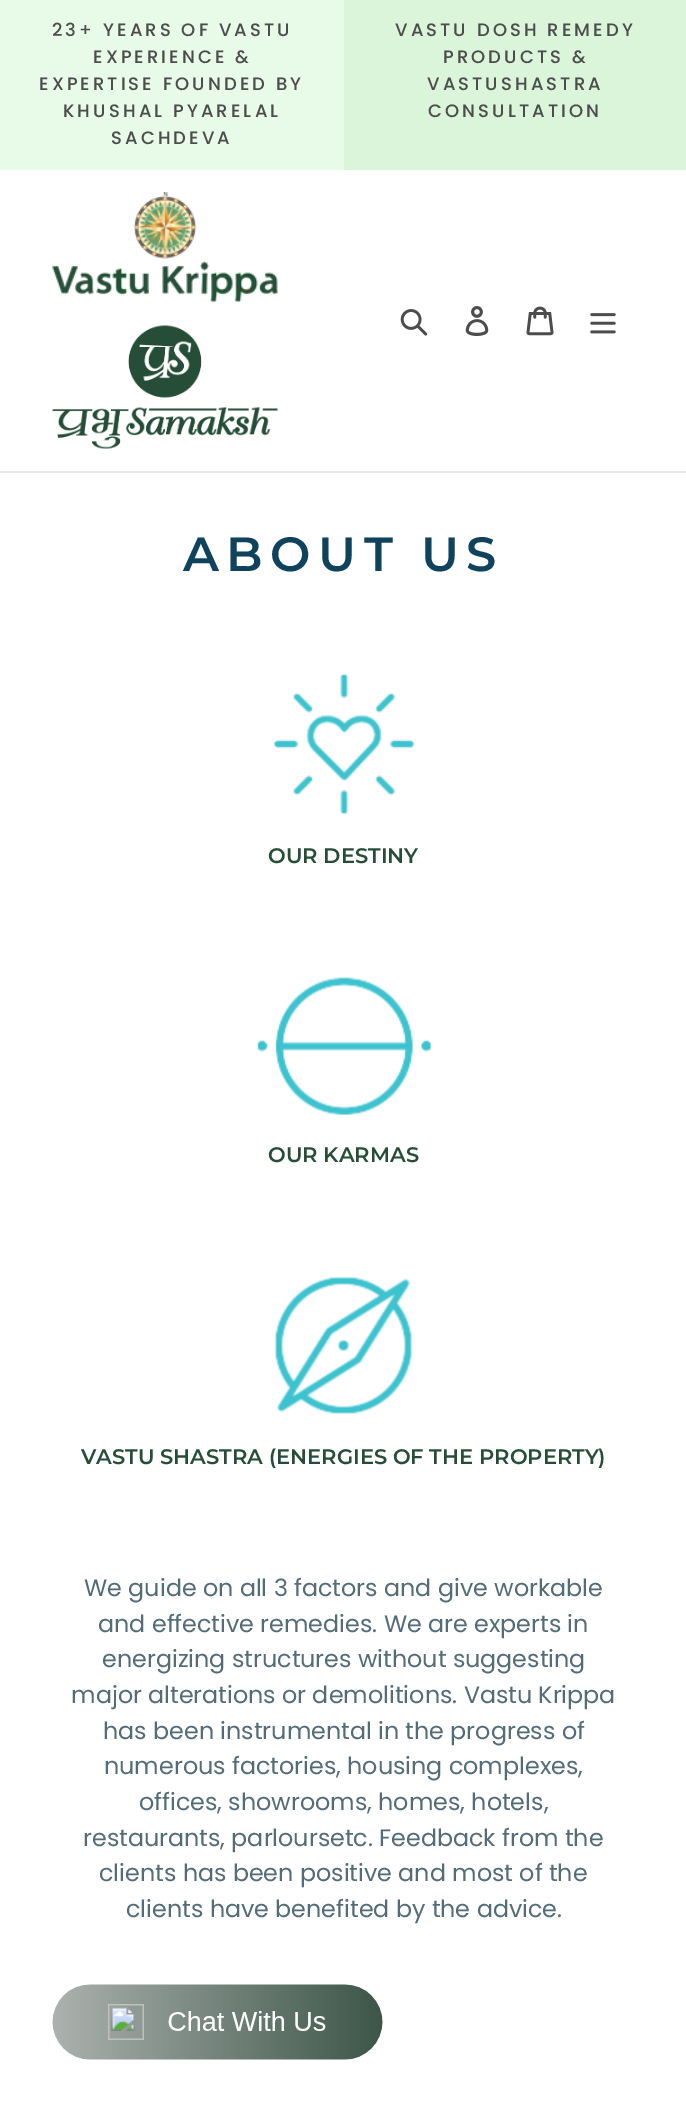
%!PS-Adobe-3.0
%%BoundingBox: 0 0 686 2112
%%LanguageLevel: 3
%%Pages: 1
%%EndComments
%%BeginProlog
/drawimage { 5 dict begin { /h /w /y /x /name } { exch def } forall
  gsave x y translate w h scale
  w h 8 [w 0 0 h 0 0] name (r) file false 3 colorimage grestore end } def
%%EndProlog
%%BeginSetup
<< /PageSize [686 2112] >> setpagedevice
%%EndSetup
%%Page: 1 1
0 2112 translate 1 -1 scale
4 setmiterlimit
1 setgray
0 0 686 2112 rectfill
0.91 0.98 0.91 setrgbcolor
0 0 344 170 rectfill
0.855 0.961 0.855 setrgbcolor
344 0 342 170 rectfill
0.922 setgray
0 471 686 2 rectfill
(images/1.raw) 52 192 226 110 drawimage
(images/2.raw) 52 325 226 124 drawimage
(images/3.raw) 400 309 28 27 drawimage
(images/4.raw) 465 306 24 30 drawimage
(images/5.raw) 526 306 28 30 drawimage
(images/6.raw) 590 313 26 21 drawimage
(images/7.raw) 274 673 140 142 drawimage
(images/8.raw) 256 977 176 138 drawimage
(images/9.raw) 274 1276 139 138 drawimage
(images/10.raw) 52 1984 331 76 drawimage
/Poppins-Medium [18 0 0 -18 0 0] selectfont
0.298 setgray
52 36 moveto 3.1 0 (23+ YEARS OF VASTU) ashow
93 63 moveto 3.1 0 (EXPERIENCE &) ashow
39 90 moveto 3.1 0 (EXPERTISE FOUNDED BY) ashow
63 117 moveto 3.1 0 (KHUSHAL PYARELAL) ashow
111 144 moveto 3.1 0 (SACHDEVA) ashow
395 36 moveto 3.1 0 (VASTU DOSH REMEDY) ashow
443 63 moveto 3.1 0 (PRODUCTS &) ashow
427 90 moveto 3.1 0 (VASTUSHASTRA) ashow
428 117 moveto 3.1 0 (CONSULTATION) ashow
/Montserrat-SemiBold [48 0 0 -48 0 0] selectfont
0.059 0.259 0.365 setrgbcolor
183 571 moveto 7.5 0 (ABOUT US) ashow
/Montserrat-SemiBold [21 0 0 -21 0 0] selectfont
0.145 0.302 0.216 setrgbcolor
268 863 moveto (OUR DESTINY) show
268 1162 moveto (OUR KARMAS) show
81 1464 moveto (VASTU SHASTRA \(ENERGIES OF THE PROPERTY\)) show
/Poppins-Regular [23.8 0 0 -23.8 0 0] selectfont
0.329 0.424 0.471 setrgbcolor
84 1596 moveto (We guide on all 3 factors and give workable) show
98 1632 moveto (and effective remedies. We are experts in) show
102 1667 moveto (energizing structures without suggesting) show
71 1703 moveto (major alterations or demolitions. Vastu Krippa) show
103 1739 moveto (has been instrumental in the progress of) show
104 1774 moveto (numerous factories, housing complexes,) show
139 1810 moveto (offices, showrooms, homes, hotels,) show
83 1846 moveto (restaurants, parloursetc. Feedback from the) show
99 1881 moveto (clients has been positive and most of the) show
126 1917 moveto (clients have benefited by the advice.) show
showpage
%%EOF
